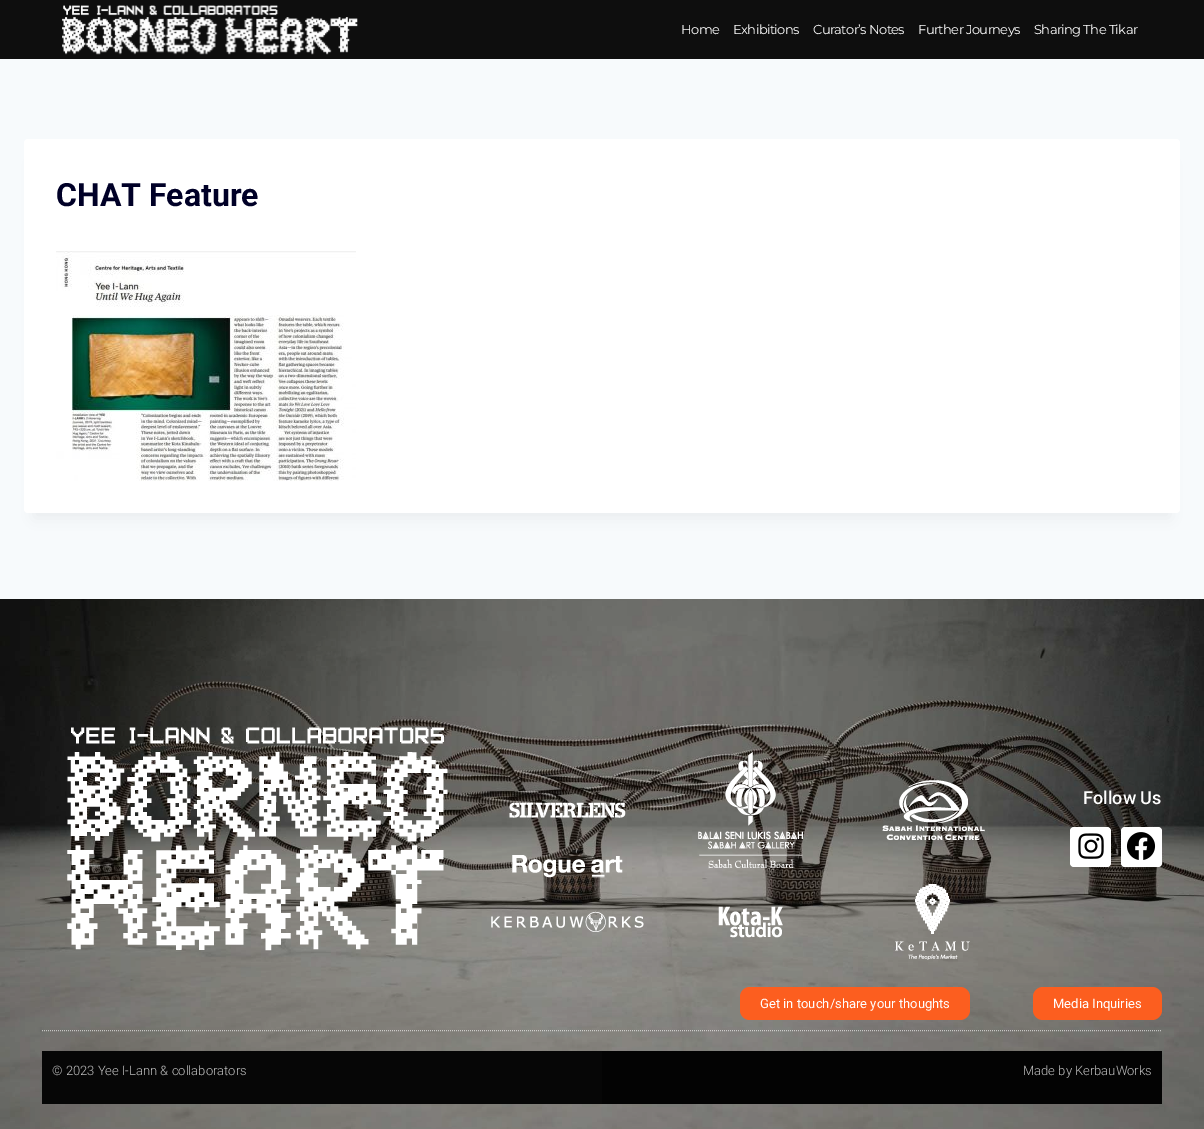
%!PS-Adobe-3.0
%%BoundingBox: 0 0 1204 1129
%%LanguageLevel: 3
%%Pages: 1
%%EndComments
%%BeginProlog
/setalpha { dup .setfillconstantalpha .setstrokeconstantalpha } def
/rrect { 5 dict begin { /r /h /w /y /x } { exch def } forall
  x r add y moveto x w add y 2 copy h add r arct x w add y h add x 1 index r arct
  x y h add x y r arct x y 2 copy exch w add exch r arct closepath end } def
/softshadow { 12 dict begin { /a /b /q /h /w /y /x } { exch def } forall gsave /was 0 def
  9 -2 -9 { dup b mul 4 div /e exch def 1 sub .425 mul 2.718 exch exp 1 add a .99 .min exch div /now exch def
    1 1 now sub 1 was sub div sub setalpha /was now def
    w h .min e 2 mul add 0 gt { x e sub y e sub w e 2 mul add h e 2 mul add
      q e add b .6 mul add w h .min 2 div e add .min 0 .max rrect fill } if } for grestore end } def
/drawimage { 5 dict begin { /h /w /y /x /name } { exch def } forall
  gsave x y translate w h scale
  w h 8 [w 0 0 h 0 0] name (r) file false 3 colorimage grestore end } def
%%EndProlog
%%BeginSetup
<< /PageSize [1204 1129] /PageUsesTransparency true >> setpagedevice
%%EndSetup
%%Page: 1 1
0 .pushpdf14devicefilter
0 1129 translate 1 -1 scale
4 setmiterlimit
0.969 0.98 0.988 setrgbcolor
0 0 1204 1129 rectfill
0.055 setgray
0 0 1204 59 rectfill
(images/1.raw) 62 5 296 50 drawimage
0 setgray
34 164 1136 354 0 7.5 0.05 softshadow
1 setgray
24 139 1156 374 4 rrect fill
(images/2.raw) 56 251 300 230 drawimage
(images/3.raw) 0 599 1204 530 drawimage
(images/4.raw) 67 727 918 233 drawimage
1070 827 41 40 4 rrect fill
(images/5.raw) 1078 833 26 26 drawimage
1121 827 41 40 4 rrect fill
(images/6.raw) 1126 832 30 28 drawimage
0.988 0.369 0.122 setrgbcolor
740 987 230 33 10 rrect fill
1033 987 129 33 10 rrect fill
0.59 setalpha
1 setgray
[1 1] 0 setdash
newpath 42 1030.5 moveto 1162 1030.5 lineto stroke
1 setalpha
0.024 setgray
42 1051 560 53 rectfill
0.012 setgray
602 1051 560 53 rectfill
/Montserrat-Regular [13 0 0 -13 0 0] selectfont
1 setgray
681 34 moveto -0.6 0 (Home) ashow
733 34 moveto -0.6 0 (Exhibitions) ashow
813 34 moveto -0.6 0 (Curator’s Notes) ashow
918 34 moveto -0.6 0 (Further Journeys) ashow
1034 34 moveto -0.6 0 (Sharing The Tikar) ashow
/Roboto-Bold [32 0 0 -32 0 0] selectfont
0 0 0.153 setrgbcolor
56 206 moveto (CHAT Feature) show
/Roboto-Medium [18 0 0 -18 0 0] selectfont
1 setgray
1083 804 moveto (Follow Us) show
/Roboto-Regular [13 0 0 -13 0 0] selectfont
760 1008 moveto (Get in touch/share your thoughts) show
1053 1008 moveto (Media Inquiries) show
/Roboto-Light [13 0 0 -13 0 0] selectfont
0.745 setgray
52 1075 moveto (© 2023 Yee I-Lann & collaborators) show
1023 1075 moveto (Made by KerbauWorks) show
.poppdf14devicefilter showpage
%%EOF
